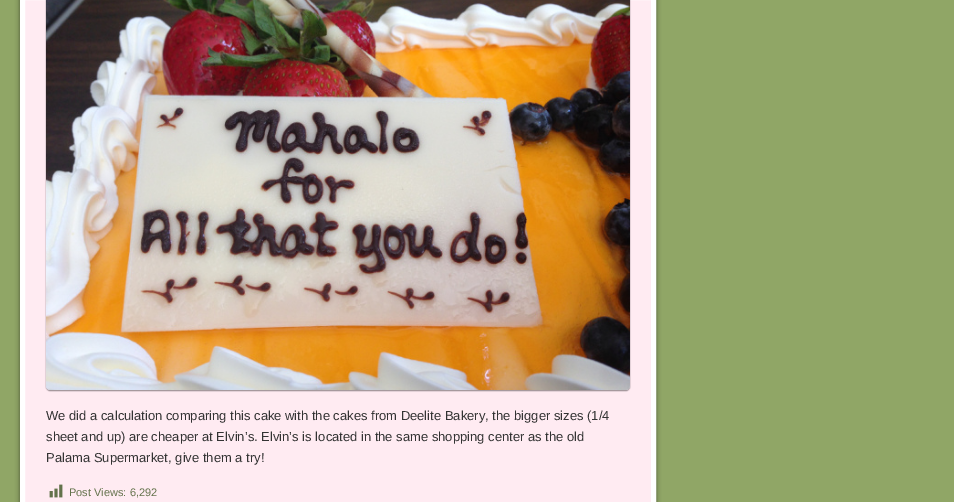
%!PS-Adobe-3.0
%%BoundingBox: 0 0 954 502
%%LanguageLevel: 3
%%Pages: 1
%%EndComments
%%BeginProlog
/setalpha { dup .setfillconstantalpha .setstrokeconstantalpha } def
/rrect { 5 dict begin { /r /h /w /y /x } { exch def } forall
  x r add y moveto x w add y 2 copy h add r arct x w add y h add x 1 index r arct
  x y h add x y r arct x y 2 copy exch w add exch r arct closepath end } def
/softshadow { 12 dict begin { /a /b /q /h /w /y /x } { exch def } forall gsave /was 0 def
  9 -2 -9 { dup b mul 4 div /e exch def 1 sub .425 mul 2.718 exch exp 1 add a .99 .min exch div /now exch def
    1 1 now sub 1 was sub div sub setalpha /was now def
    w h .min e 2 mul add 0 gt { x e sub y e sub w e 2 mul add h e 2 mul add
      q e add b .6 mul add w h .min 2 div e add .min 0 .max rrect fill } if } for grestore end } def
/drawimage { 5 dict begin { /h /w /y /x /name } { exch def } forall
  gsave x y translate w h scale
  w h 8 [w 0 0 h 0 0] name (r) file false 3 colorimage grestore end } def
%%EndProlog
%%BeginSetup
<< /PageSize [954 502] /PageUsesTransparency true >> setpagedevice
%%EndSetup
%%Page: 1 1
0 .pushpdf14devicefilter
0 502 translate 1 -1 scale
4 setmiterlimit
0.565 0.651 0.4 setrgbcolor
0 0 954 502 rectfill
0 setgray
20 -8 626 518 0 2.5 0.5 softshadow
30 -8 626 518 0 2.5 0.5 softshadow
1 0.922 0.949 setrgbcolor
newpath 22.5 -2.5 moveto 653.5 -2.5 lineto 653.5 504.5 lineto 22.5 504.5 lineto closepath gsave fill grestore
1 setgray
5 setlinewidth
stroke
0 setgray
46 -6 584 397 4 0.5 0.4 softshadow
(images/1.raw) 46 0 584 390 drawimage
(images/2.raw) 49 484 14 14 drawimage
/LiberationSans-Regular [13 0 0 -13 0 0] selectfont
0.2 setgray
46 420 moveto (We did a calculation comparing this cake with the cakes from Deelite Bakery, the bigger sizes \(1/4) show
46 441 moveto (sheet and up\) are cheaper at Elvin’s. Elvin’s is located in the same shopping center as the old) show
46 462 moveto (Palama Supermarket, give them a try!) show
/LiberationSans-Regular [11 0 0 -11 0 0] selectfont
0.388 0.447 0.294 setrgbcolor
69 496 moveto (Post Views: 6,292) show
.poppdf14devicefilter showpage
%%EOF
